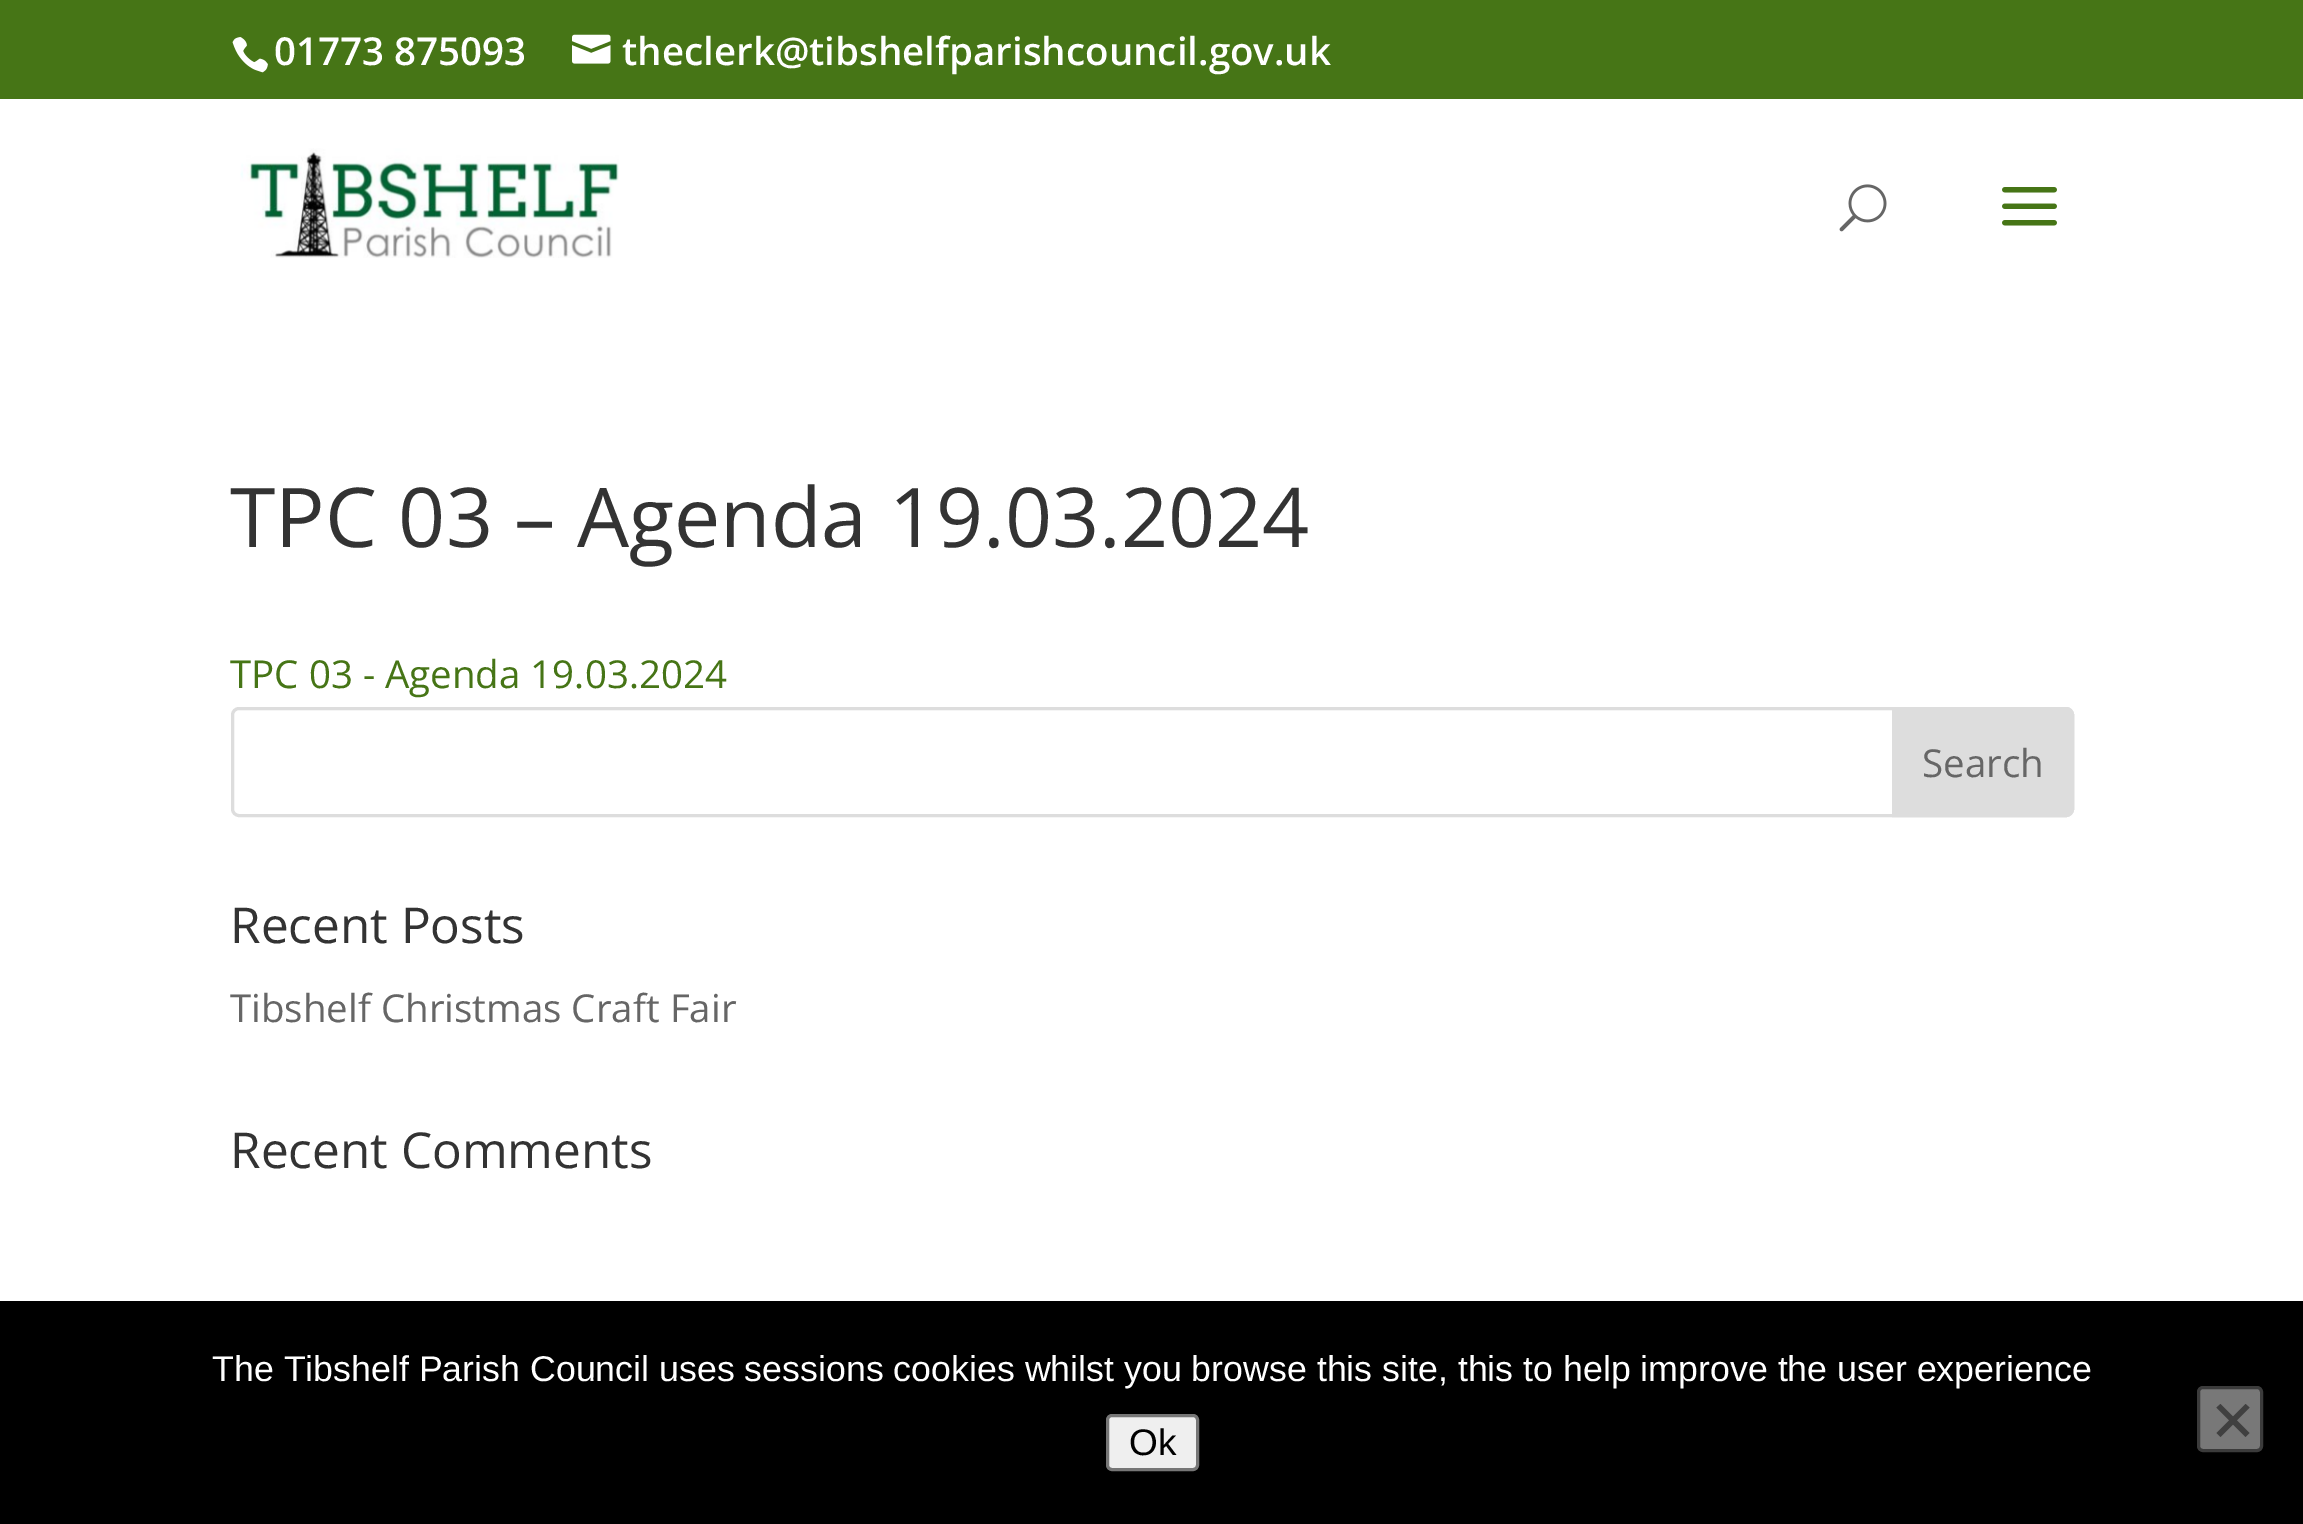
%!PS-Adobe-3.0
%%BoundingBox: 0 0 2303 1524
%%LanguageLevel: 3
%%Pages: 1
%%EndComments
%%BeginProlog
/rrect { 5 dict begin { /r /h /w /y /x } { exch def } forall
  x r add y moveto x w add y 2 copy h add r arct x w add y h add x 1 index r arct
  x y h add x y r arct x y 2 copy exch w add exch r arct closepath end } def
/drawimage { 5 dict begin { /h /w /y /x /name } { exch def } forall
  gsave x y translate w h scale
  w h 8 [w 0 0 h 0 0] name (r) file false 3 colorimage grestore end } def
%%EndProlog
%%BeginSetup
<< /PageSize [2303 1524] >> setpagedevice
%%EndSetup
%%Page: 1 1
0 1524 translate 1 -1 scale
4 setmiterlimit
1 setgray
0 0 2303 1524 rectfill
0.275 0.459 0.086 setrgbcolor
0 0 2303 99 rectfill
(images/1.raw) 232 37 36 36 drawimage
(images/2.raw) 572 34 39 30 drawimage
(images/3.raw) 240 148 379 110 drawimage
(images/4.raw) 1839 184 48 48 drawimage
(images/5.raw) 2002 187 55 39 drawimage
0.867 setgray
3 setlinewidth
232.5 708.5 1840 107 6.5 rrect stroke
newpath 1893.5 708.5 moveto 2066 708.5 lineto 2069.5 708.5 2072.5 711.5 2072.5 715 curveto 2072.5 809 lineto 2072.5 812.5 2069.5 815.5 2066 815.5 curveto 1893.5 815.5 lineto closepath gsave fill grestore
stroke
0 setgray
0 1301 2303 223 rectfill
0.937 setgray
1107.5 1415.5 90 54 4.5 rrect gsave fill grestore
0.463 setgray
stroke
0.471 setgray
2198.5 1387.5 63 63 4.5 rrect gsave fill grestore
0.231 setgray
stroke
0.251 setgray
newpath 2245.5 1404 moveto 2249.5 1407.5 lineto 2220.5 1437 lineto 2216.5 1433 lineto closepath fill
newpath 2216.5 1407.5 moveto 2220.5 1404 lineto 2249.5 1433 lineto 2245.5 1437 lineto closepath fill
/OpenSans-SemiBold [38.5 0 0 -38.5 0 0] selectfont
1 setgray
274 65 moveto (01773 875093) show
622 65 moveto (theclerk@tibshelfparishcouncil.gov.uk) show
/OpenSans-Regular [82.5 0 0 -82.5 0 0] selectfont
0.2 setgray
230 547 moveto (TPC 03 – Agenda 19.03.2024) show
/OpenSans-Regular [38.5 0 0 -38.5 0 0] selectfont
0.275 0.459 0.086 setrgbcolor
230 688 moveto (TPC 03 - Agenda 19.03.2024) show
0.4 setgray
1922 777 moveto (Search) show
/OpenSans-Regular [49.5 0 0 -49.5 0 0] selectfont
0.2 setgray
230 943 moveto (Recent Posts) show
/OpenSans-Regular [38.5 0 0 -38.5 0 0] selectfont
0.4 setgray
230 1022 moveto (Tibshelf Christmas Craft Fair) show
/OpenSans-Regular [49.5 0 0 -49.5 0 0] selectfont
0.2 setgray
230 1168 moveto (Recent Comments) show
/LiberationSans-Regular [35.75 0 0 -35.75 0 0] selectfont
1 setgray
212 1381 moveto (The Tibshelf Parish Council uses sessions cookies whilst you browse this site, this to help improve the user experience) show
/LiberationSans-Regular [37 0 0 -37 0 0] selectfont
0 setgray
1129 1455 moveto (Ok) show
showpage
%%EOF
